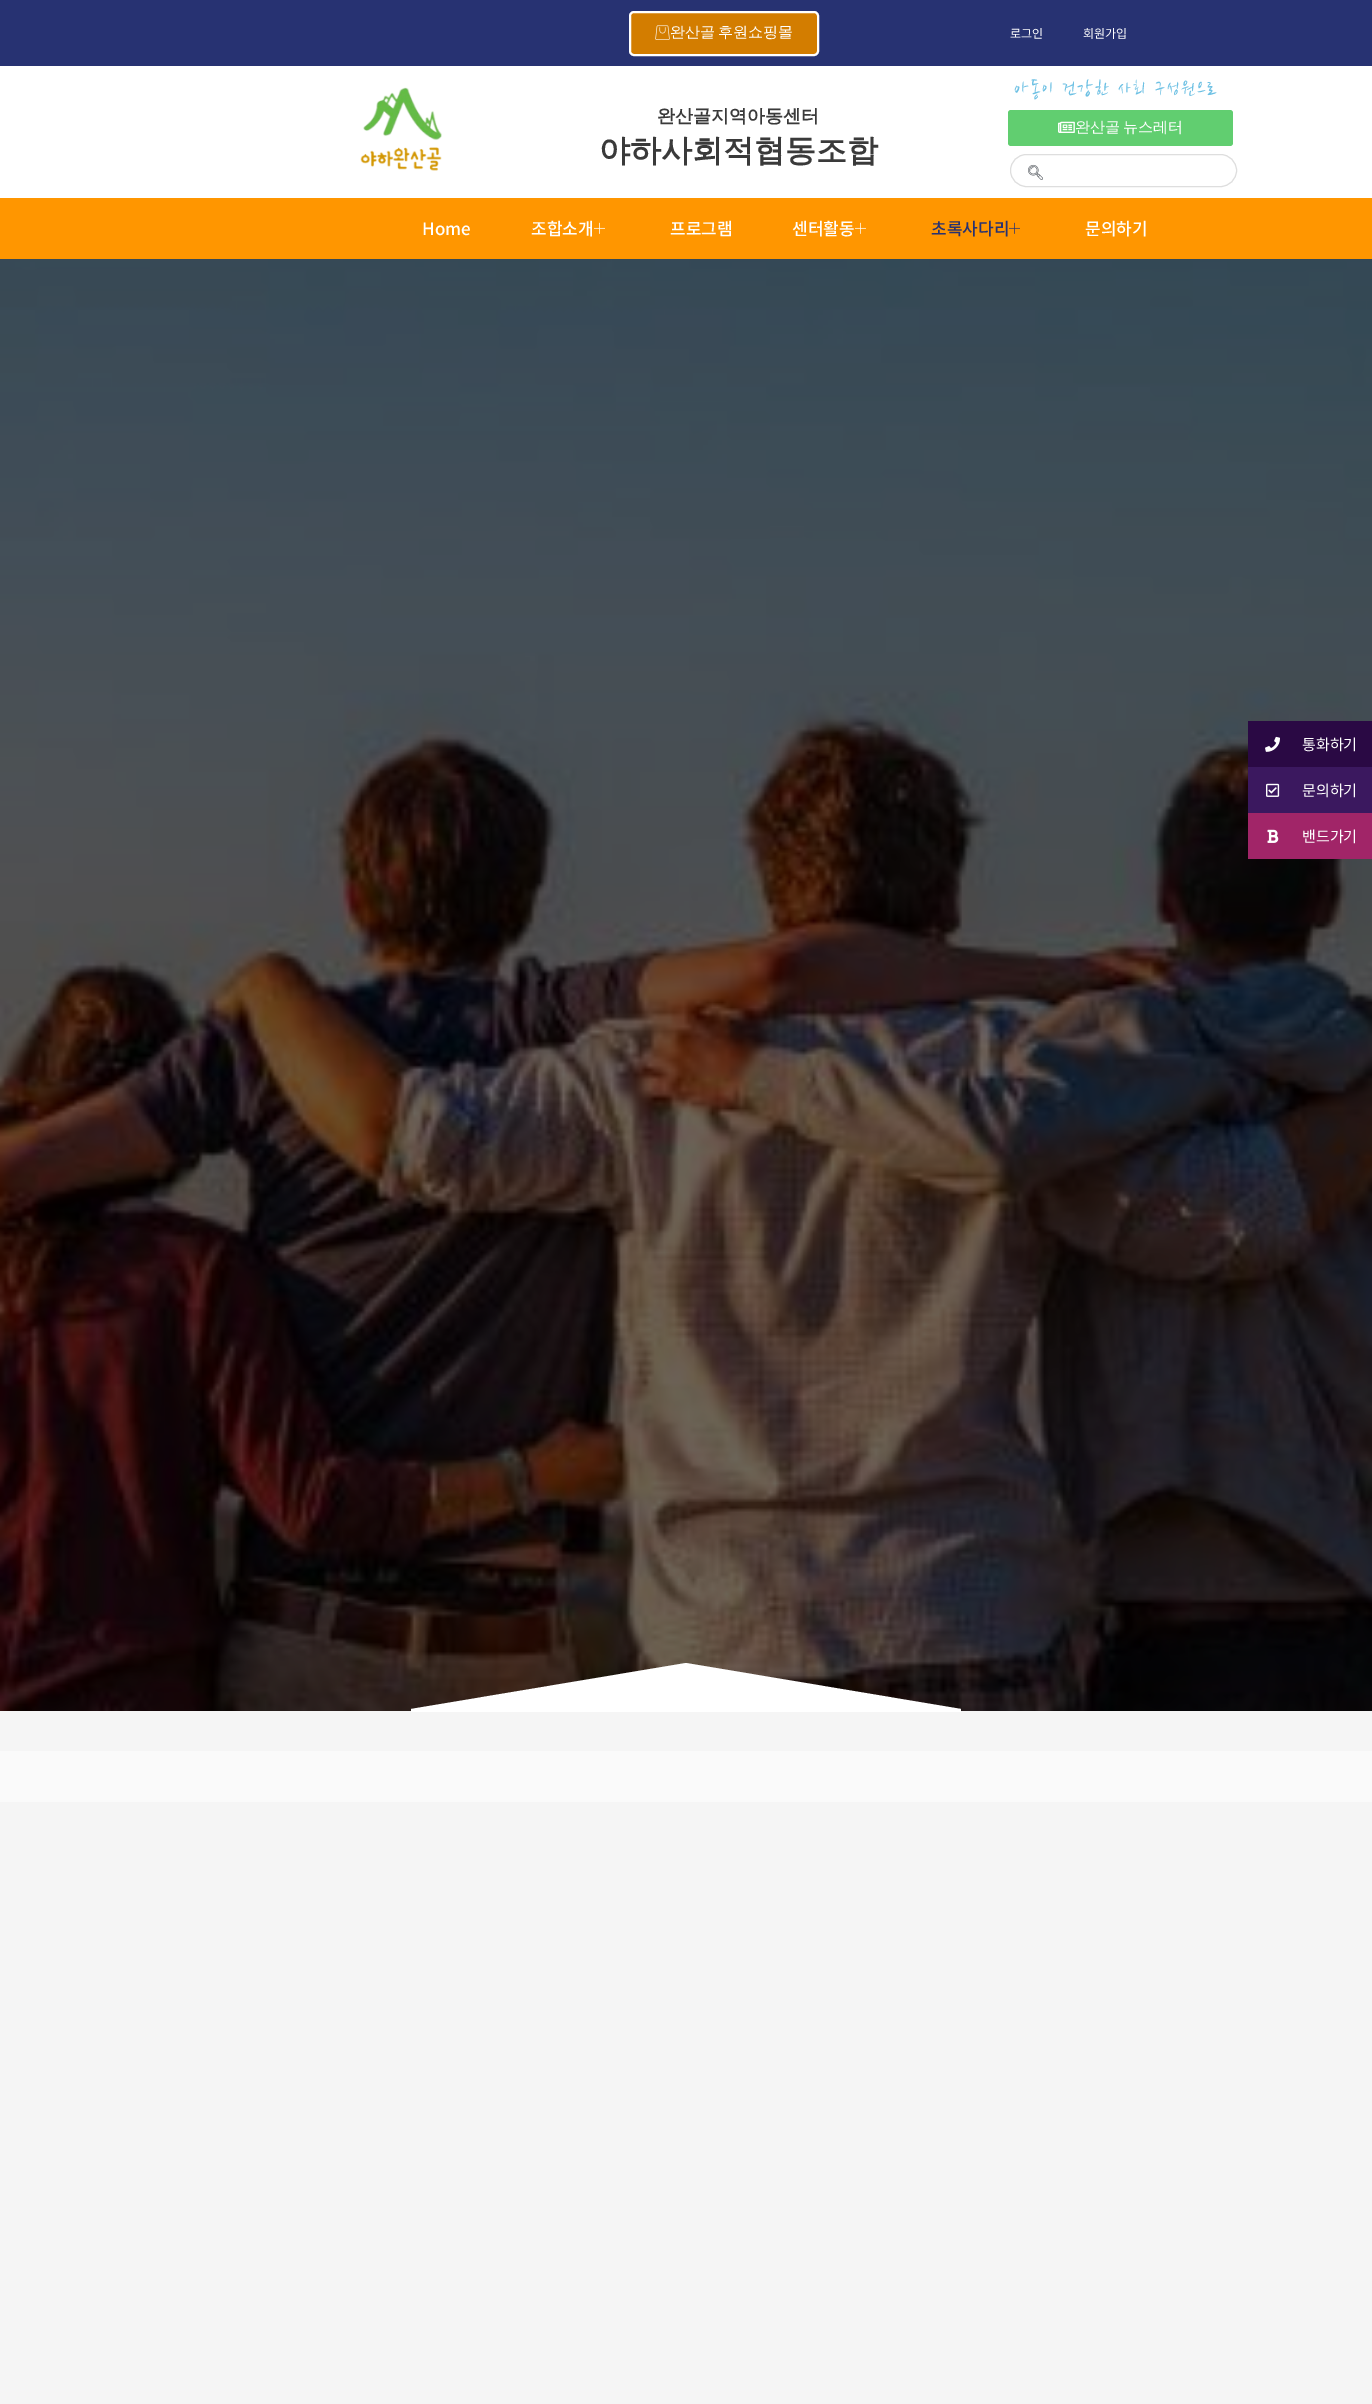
%!PS-Adobe-3.0
%%BoundingBox: 0 0 1372 2404
%%LanguageLevel: 3
%%Pages: 1
%%EndComments
%%BeginProlog
/rrect { 5 dict begin { /r /h /w /y /x } { exch def } forall
  x r add y moveto x w add y 2 copy h add r arct x w add y h add x 1 index r arct
  x y h add x y r arct x y 2 copy exch w add exch r arct closepath end } def
/drawimage { 5 dict begin { /h /w /y /x /name } { exch def } forall
  gsave x y translate w h scale
  w h 8 [w 0 0 h 0 0] name (r) file false 3 colorimage grestore end } def
%%EndProlog
%%BeginSetup
<< /PageSize [1372 2404] >> setpagedevice
%%EndSetup
%%Page: 1 1
0 2404 translate 1 -1 scale
4 setmiterlimit
0.961 setgray
0 0 1372 2404 rectfill
0.153 0.196 0.447 setrgbcolor
0 0 1372 66 rectfill
0.827 0.49 0 setrgbcolor
630 12 188 43 4 rrect gsave fill grestore
1 setgray
2 setlinewidth
stroke
(images/1.raw) 655 25 15 15 drawimage
0 66 1372 132 rectfill
(images/2.raw) 360 87 82 84 drawimage
0.38 0.808 0.439 setrgbcolor
1008 110 225 36 3 rrect fill
(images/3.raw) 1058 121 17 12 drawimage
0.871 setgray
1 setlinewidth
1010.5 154.5 226 32 16 rrect stroke
(images/4.raw) 1028 164 15 16 drawimage
1 0.588 0 setrgbcolor
0 198 1372 61 rectfill
(images/5.raw) 594 222 11 12 drawimage
(images/5.raw) 855 222 11 12 drawimage
(images/6.raw) 1009 222 11 12 drawimage
(images/7.raw) 0 259 1372 1452 drawimage
1 setgray
newpath 686 1663 moveto 961 1709 lineto 961 1712 lineto 411 1712 lineto 411 1709 lineto closepath fill
0.98 setgray
0 1751 1372 51 rectfill
0.165 0.035 0.267 setrgbcolor
1248 721 124 46 rectfill
(images/8.raw) 1265 736 15 16 drawimage
0.231 0.094 0.373 setrgbcolor
1248 767 124 46 rectfill
(images/9.raw) 1266 783 14 14 drawimage
0.631 0.145 0.408 setrgbcolor
1248 813 124 46 rectfill
(images/10.raw) 1267 829 12 14 drawimage
/WenQuanYiZenHei-Medium [15 0 0 -15 0 0] selectfont
1 setgray
670 37 moveto -1 0 32 (완산골 후원쇼핑몰) widthshow
/NotoSansKR-Regular [12 0 0 -12 0 0] selectfont
1010 38 moveto (로그인) show
1083 38 moveto (회원가입) show
/WenQuanYiZenHei-Bold [18 0 0 -18 0 0] selectfont
0.227 setgray
657 122 moveto (완산골지역아동센터) show
/WenQuanYiZenHei-Bold [31 0 0 -31 0 0] selectfont
599 161 moveto (야하사회적협동조합) show
/NanumBrushScript-Regular [21 0 0 -21 0 0] selectfont
0.431 0.757 0.894 setrgbcolor
1014 92 moveto 1.75 0 (아동이 건강한 사회 구성원으로) ashow
/WenQuanYiZenHei-Medium [15 0 0 -15 0 0] selectfont
1 setgray
1075 132 moveto -1 0 32 (완산골 뉴스레터) widthshow
/NotoSansKR-Medium [17 0 0 -17 0 0] selectfont
422 235 moveto (Home) show
531 235 moveto (조합소개) show
670 235 moveto (프로그램) show
792 235 moveto (센터활동) show
0.153 0.196 0.447 setrgbcolor
931 235 moveto (초록사다리) show
1 setgray
1085 235 moveto (문의하기) show
/NotoSansKR-Regular [15 0 0 -15 0 0] selectfont
1302 750 moveto (통화하기) show
1302 796 moveto (문의하기) show
1302 842 moveto (밴드가기) show
showpage
%%EOF
